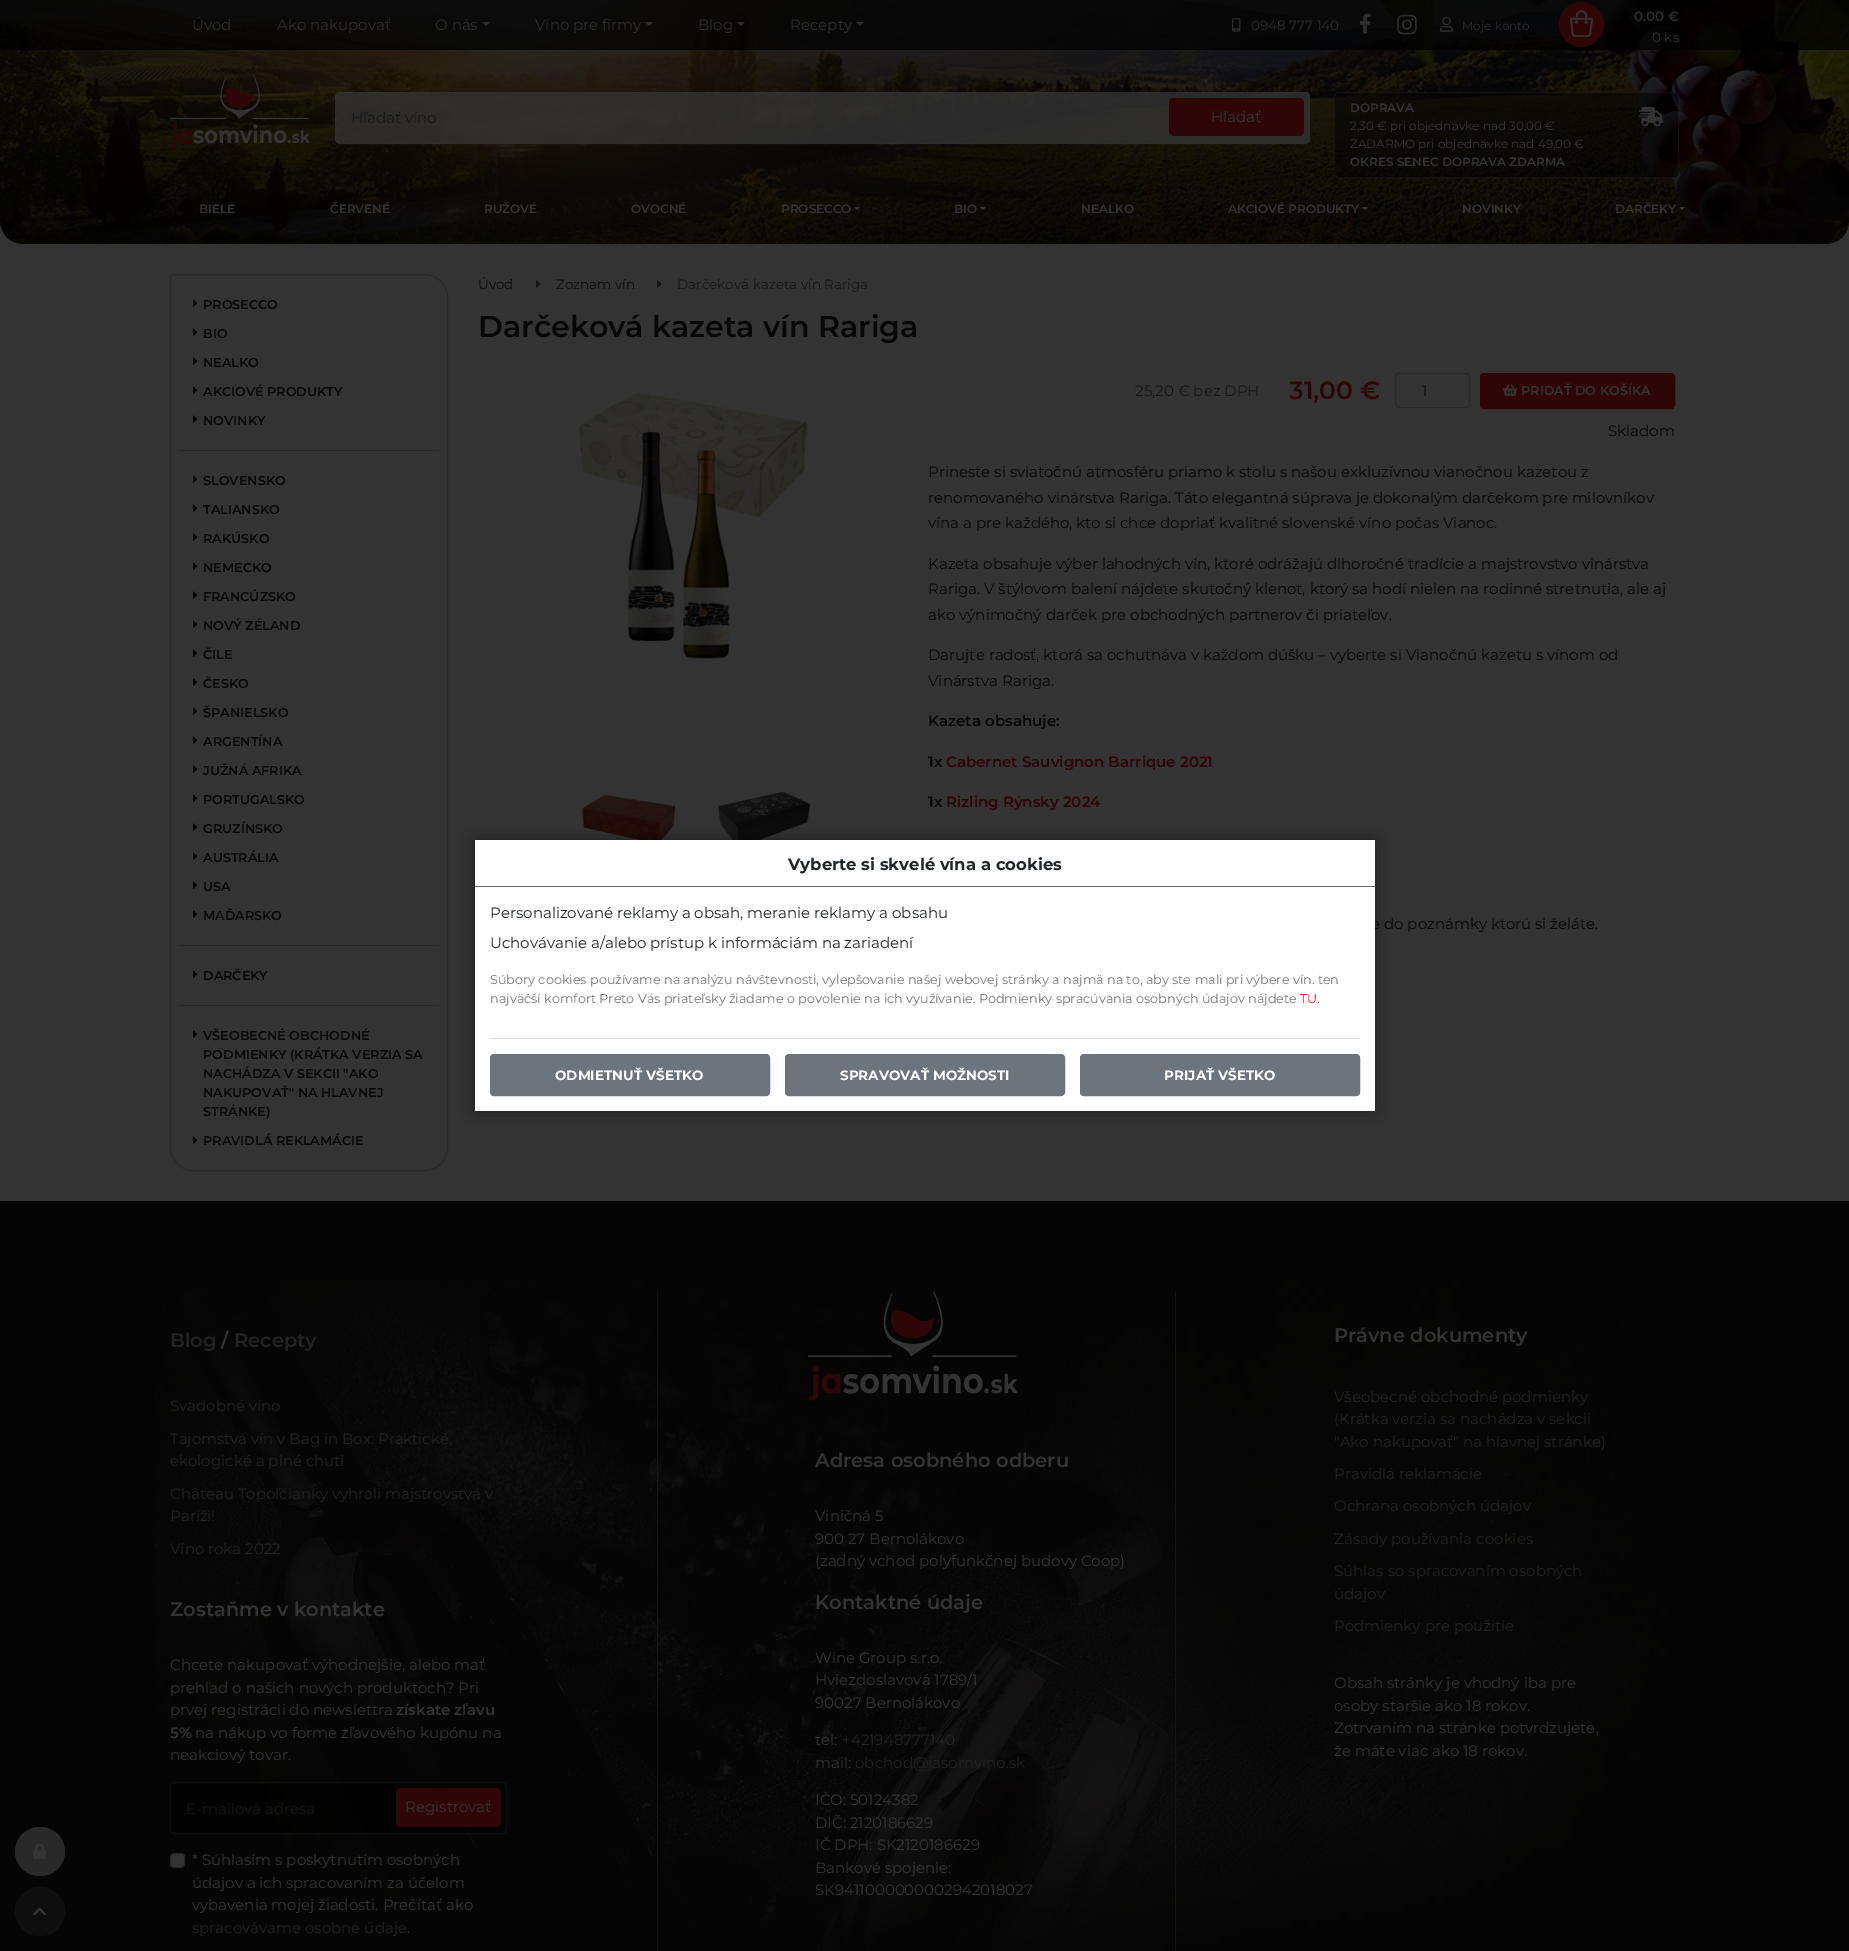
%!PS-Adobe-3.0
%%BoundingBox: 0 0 1849 1951
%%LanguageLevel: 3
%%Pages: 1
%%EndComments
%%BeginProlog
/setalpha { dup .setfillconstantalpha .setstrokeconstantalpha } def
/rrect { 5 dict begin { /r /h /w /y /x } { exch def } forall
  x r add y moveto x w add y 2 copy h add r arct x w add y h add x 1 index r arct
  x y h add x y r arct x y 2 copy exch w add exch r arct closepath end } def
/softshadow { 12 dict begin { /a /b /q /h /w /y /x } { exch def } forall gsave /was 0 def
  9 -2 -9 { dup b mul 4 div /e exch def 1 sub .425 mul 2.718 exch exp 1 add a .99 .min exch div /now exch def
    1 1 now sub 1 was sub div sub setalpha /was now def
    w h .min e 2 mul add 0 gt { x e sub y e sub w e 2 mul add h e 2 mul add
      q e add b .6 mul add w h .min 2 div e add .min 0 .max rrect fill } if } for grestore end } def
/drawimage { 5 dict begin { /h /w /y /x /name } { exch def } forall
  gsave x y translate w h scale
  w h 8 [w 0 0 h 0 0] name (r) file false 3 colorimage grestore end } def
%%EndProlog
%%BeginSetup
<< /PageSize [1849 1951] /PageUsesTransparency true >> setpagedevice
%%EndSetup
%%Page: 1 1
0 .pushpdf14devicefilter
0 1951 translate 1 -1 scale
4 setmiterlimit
0.2 setgray
0 0 1849 1951 rectfill
(images/1.raw) 0 0 1849 244 drawimage
0.75 setalpha
0 setgray
0 0 1849 50 rectfill
1 setalpha
0.173 setgray
newpath 482 22 moveto 490 22 lineto 486 26 lineto closepath fill
newpath 645 22 moveto 653 22 lineto 649 26 lineto closepath fill
newpath 737 22 moveto 745 22 lineto 741 26 lineto closepath fill
newpath 856 22 moveto 864 22 lineto 860 26 lineto closepath fill
(images/2.raw) 1232 18 9 14 drawimage
(images/3.raw) 1359 13 12 21 drawimage
(images/4.raw) 1397 14 20 21 drawimage
(images/5.raw) 1440 16 14 16 drawimage
(images/6.raw) 1559 2 45 45 drawimage
(images/7.raw) 170 75 139 73 drawimage
0.8 setalpha
0.2 setgray
335 92 975 52 5 rrect fill
0.25 setalpha
335.5 92.5 974 51 4.5 rrect stroke
1 setalpha
0.184 0.024 0.027 setrgbcolor
1169 98 135 38 5 rrect fill
0.5 setalpha
0 setgray
1334 92 345 86 5 rrect fill
0.25 setalpha
0.2 setgray
1334.5 92.5 344 85 4.5 rrect stroke
1 setalpha
(images/8.raw) 1639 106 25 21 drawimage
newpath 854 207 moveto 860 207 lineto 857 210 lineto closepath fill
newpath 980 207 moveto 986 207 lineto 983 210 lineto closepath fill
newpath 1362 207 moveto 1368 207 lineto 1365 210 lineto closepath fill
newpath 1679 207 moveto 1685 207 lineto 1682 210 lineto closepath fill
0.024 0.02 0.02 setrgbcolor
0 1201 1849 750 rectfill
0.161 setgray
15 1827 50 49 24.5 rrect fill
(images/9.raw) 33 1843 14 16 drawimage
0.055 setgray
15 1887 50 49 24.5 rrect fill
(images/10.raw) 33 1907 13 9 drawimage
0.161 setgray
newpath 170.5 274.5 moveto 425 274.5 lineto 437.5 274.5 447.5 284.5 447.5 297 curveto 447.5 1148 lineto 447.5 1160.5 437.5 1170.5 425 1170.5 curveto 193 1170.5 lineto 180.5 1170.5 170.5 1160.5 170.5 1148 curveto closepath stroke
(images/11.raw) 193 299 5 8 drawimage
(images/11.raw) 193 328 5 8 drawimage
(images/11.raw) 193 357 5 8 drawimage
(images/11.raw) 193 386 5 8 drawimage
(images/11.raw) 193 415 5 8 drawimage
178 450 261 1 rectfill
(images/11.raw) 193 475 5 8 drawimage
(images/11.raw) 193 504 5 8 drawimage
(images/11.raw) 193 533 5 8 drawimage
(images/11.raw) 193 562 5 8 drawimage
(images/11.raw) 193 591 5 8 drawimage
(images/11.raw) 193 620 5 8 drawimage
(images/11.raw) 193 649 5 8 drawimage
(images/11.raw) 193 678 5 8 drawimage
(images/11.raw) 193 707 5 8 drawimage
(images/11.raw) 193 736 5 8 drawimage
(images/11.raw) 193 765 5 8 drawimage
(images/11.raw) 193 794 5 8 drawimage
(images/11.raw) 193 823 5 8 drawimage
(images/11.raw) 193 852 5 8 drawimage
(images/11.raw) 193 881 5 8 drawimage
(images/11.raw) 193 910 5 8 drawimage
178 945 261 1 rectfill
(images/11.raw) 193 970 5 8 drawimage
178 1005 261 1 rectfill
(images/11.raw) 193 1030 5 8 drawimage
(images/11.raw) 193 1136 5 8 drawimage
(images/12.raw) 536 280 5 8 drawimage
(images/12.raw) 657 280 5 8 drawimage
(images/13.raw) 578 391 231 268 drawimage
(images/14.raw) 581 794 95 46 drawimage
(images/15.raw) 717 791 94 49 drawimage
0.161 0.165 0.173 setrgbcolor
1395.5 373.5 74 34 3.5 rrect stroke
0.184 0.024 0.027 setrgbcolor
1480.5 373.5 194 35 3.5 rrect gsave fill grestore
stroke
(images/16.raw) 1503 384 15 12 drawimage
0 setgray
475 840 900 271 0 7.5 0.4 softshadow
(images/17.raw) 154 1280 1524 671 drawimage
0.078 setgray
657 1291 1 660 rectfill
0.5 setalpha
0 setgray
170 1782 337 52 5 rrect fill
0.25 setalpha
0.2 setgray
170.5 1782.5 336 51 4.5 rrect stroke
1 setalpha
0.184 0.024 0.027 setrgbcolor
396 1788 105 39 5 rrect fill
0.2 setgray
170.5 1853.5 14 14 3.5 rrect gsave fill grestore
0.137 0.141 0.149 setrgbcolor
stroke
0.078 setgray
1175 1291 1 660 rectfill
(images/18.raw) 808 1291 210 110 drawimage
/Montserrat-Regular [15 0 0 -15 0 0] selectfont
0.173 setgray
192 30 moveto (Úvod) show
277 30 moveto (Ako nakupovať) show
435 30 moveto (O nás) show
535 30 moveto (Víno pre firmy) show
698 30 moveto (Blog) show
790 30 moveto (Recepty) show
/Montserrat-Regular [13.5 0 0 -13.5 0 0] selectfont
1251 30 moveto (0948 777 140) show
/Montserrat-Regular [12 0 0 -12 0 0] selectfont
1462 30 moveto (Moje konto) show
/Montserrat-SemiBold [13.5 0 0 -13.5 0 0] selectfont
1634 21 moveto (0.00 €) show
/Montserrat-Regular [13.5 0 0 -13.5 0 0] selectfont
1652 42 moveto (0 ks) show
/Montserrat-Regular [15 0 0 -15 0 0] selectfont
0.086 0.09 0.098 setrgbcolor
351 123 moveto (Hľadať víno) show
0.2 setgray
1211 122 moveto (Hľadať) show
/Montserrat-SemiBold [12 0 0 -12 0 0] selectfont
1350 112 moveto (DOPRAVA) show
/Montserrat-Regular [12 0 0 -12 0 0] selectfont
1350 130 moveto (2,30 € pri objednávke nad 30,00 €) show
1350 148 moveto (ZADARMO pri objednávke nad 49,00 €) show
/Montserrat-SemiBold [12 0 0 -12 0 0] selectfont
1350 166 moveto (OKRES SENEC DOPRAVA ZDARMA) show
199 213 moveto (BIELE) show
330 213 moveto (ČERVENÉ) show
484 213 moveto (RUŽOVÉ) show
631 213 moveto (OVOCNÉ) show
781 213 moveto (PROSECCO) show
954 213 moveto (BIO) show
1081 213 moveto (NEALKO) show
1228 213 moveto (AKCIOVÉ PRODUKTY) show
1462 213 moveto (NOVINKY) show
1615 213 moveto (DARČEKY) show
/Montserrat-SemiBold [12.75 0 0 -12.75 0 0] selectfont
0.027 0.027 0.031 setrgbcolor
203 309 moveto (PROSECCO) show
203 338 moveto (BIO) show
203 367 moveto (NEALKO) show
203 396 moveto (AKCIOVÉ PRODUKTY) show
203 425 moveto (NOVINKY) show
203 485 moveto (SLOVENSKO) show
203 514 moveto (TALIANSKO) show
203 543 moveto (RAKÚSKO) show
203 572 moveto (NEMECKO) show
203 601 moveto (FRANCÚZSKO) show
203 630 moveto (NOVÝ ZÉLAND) show
203 659 moveto (ČILE) show
203 688 moveto (ČESKO) show
203 717 moveto (ŠPANIELSKO) show
203 746 moveto (ARGENTÍNA) show
203 775 moveto (JUŽNÁ AFRIKA) show
203 804 moveto (PORTUGALSKO) show
203 833 moveto (GRUZÍNSKO) show
203 862 moveto (AUSTRÁLIA) show
203 891 moveto (USA) show
203 920 moveto (MAĎARSKO) show
203 980 moveto (DARČEKY) show
203 1040 moveto (VŠEOBECNÉ OBCHODNÉ) show
203 1059 moveto (PODMIENKY \(KRÁTKA VERZIA SA) show
203 1078 moveto (NACHÁDZA V SEKCII "AKO) show
203 1097 moveto (NAKUPOVAŤ" NA HLAVNEJ) show
203 1116 moveto (STRÁNKE\)) show
203 1145 moveto (PRAVIDLÁ REKLAMÁCIE) show
/Montserrat-Regular [13.5 0 0 -13.5 0 0] selectfont
0.055 setgray
478 289 moveto (Úvod) show
556 289 moveto (Zoznam vín) show
0.086 0.09 0.098 setrgbcolor
677 289 moveto (Darčeková kazeta vín Rariga) show
/Montserrat-SemiBold [30 0 0 -30 0 0] selectfont
0.027 0.027 0.031 setrgbcolor
478 337 moveto (Darčeková kazeta vín Rariga) show
/Montserrat-Regular [15 0 0 -15 0 0] selectfont
0.086 0.09 0.098 setrgbcolor
1135 396 moveto (25,20 € bez DPH) show
/Montserrat-SemiBold [25 0 0 -25 0 0] selectfont
0.184 0.024 0.027 setrgbcolor
1289 399 moveto (31,00 €) show
/Montserrat-Regular [15 0 0 -15 0 0] selectfont
0.055 setgray
1422 396 moveto (1) show
/Montserrat-SemiBold [12.75 0 0 -12.75 0 0] selectfont
0.2 setgray
1521 395 moveto (PRIDAŤ DO KOŠÍKA) show
/Montserrat-Regular [15 0 0 -15 0 0] selectfont
0.027 0.027 0.031 setrgbcolor
1608 436 moveto (Skladom) show
928 477 moveto (Prineste si sviatočnú atmosféru priamo k stolu s našou exkluzívnou vianočnou kazetou z) show
928 503 moveto (renomovaného vinárstva Rariga. Táto elegantná súprava je dokonalým darčekom pre milovníkov) show
928 528 moveto (vína a pre každého, kto si chce dopriať kvalitné slovenské víno počas Vianoc.) show
928 569 moveto (Kazeta obsahuje výber lahodných vín, ktoré odrážajú dlhoročné tradície a majstrovstvo vinárstva) show
928 594 moveto (Rariga. V štýlovom balení nájdete skutočný klenot, ktorý sa hodí nielen na rodinné stretnutia, ale aj) show
928 620 moveto (ako výnimočný darček pre obchodných partnerov či priateľov.) show
928 660 moveto (Darujte radosť, ktorá sa ochutnáva v každom dúšku – vyberte si Vianočnú kazetu s vínom od) show
928 686 moveto (Vinárstva Rariga.) show
/Montserrat-SemiBold [15 0 0 -15 0 0] selectfont
928 726 moveto (Kazeta obsahuje:) show
928 767 moveto (1x) show
0.184 0.024 0.027 setrgbcolor
946 767 moveto (Cabernet Sauvignon Barrique 2021) show
0.027 0.027 0.031 setrgbcolor
928 807 moveto (1x) show
0.184 0.024 0.027 setrgbcolor
946 807 moveto (Rizling Rýnsky 2024) show
/Montserrat-Regular [15 0 0 -15 0 0] selectfont
0.027 0.027 0.031 setrgbcolor
1371 929 moveto (e do poznámky ktorú si želáte.) show
1 setgray
475 840 900 271 rectfill
0.4 setgray
475 886 900 1 rectfill
/Montserrat-Bold [16.5 0 0 -16.5 0 0] selectfont
0.129 0.145 0.161 setrgbcolor
788 870 moveto (Vyberte si skvelé vína a cookies) show
/Montserrat-Regular [15 0 0 -15 0 0] selectfont
490 918 moveto (Personalizované reklamy a obsah, meranie reklamy a obsahu) show
490 948 moveto (Uchovávanie a/alebo prístup k informáciám na zariadení) show
/Montserrat-Regular [12.75 0 0 -12.75 0 0] selectfont
0.467 setgray
490 984 moveto (Súbory cookies používame na analýzu návštevnosti, vylepšovanie našej webovej stránky a najmä na to, aby ste mali pri výbere vín. ten) show
490 1003 moveto (najväčší komfort Preto Vás priateľsky žiadame o povolenie na ich využívanie. Podmienky spracúvania osobných údajov nájdete) show
0.929 0.11 0.141 setrgbcolor
1300 1003 moveto (TU.) show
0.867 setgray
490 1038 870 1 rectfill
0.424 0.459 0.49 setrgbcolor
490.5 1054.5 279 41 3.5 rrect gsave fill grestore
stroke
/Montserrat-Bold [13.5 0 0 -13.5 0 0] selectfont
1 setgray
555 1080 moveto (ODMIETNUŤ VŠETKO) show
0.424 0.459 0.49 setrgbcolor
785.5 1054.5 279 41 3.5 rrect gsave fill grestore
stroke
1 setgray
840 1080 moveto (SPRAVOVAŤ MOŽNOSTI) show
0.424 0.459 0.49 setrgbcolor
1080.5 1054.5 279 41 3.5 rrect gsave fill grestore
stroke
1 setgray
1164 1080 moveto (PRIJAŤ VŠETKO) show
/Montserrat-SemiBold [19.5 0 0 -19.5 0 0] selectfont
0.133 setgray
170 1347 moveto (Blog) show
0.2 setgray
221 1347 moveto (/) show
0.133 setgray
234 1347 moveto (Recepty) show
/Montserrat-Regular [15 0 0 -15 0 0] selectfont
170 1411 moveto (Svadobné víno) show
170 1444 moveto (Tajomstvá vín v Bag in Box: Praktické,) show
170 1466 moveto (ekologické a plné chuti) show
170 1499 moveto (Château Topoľčianky vyhrali majstrovstvá v) show
170 1521 moveto (Paríži!) show
170 1554 moveto (Víno roka 2022) show
/Montserrat-SemiBold [19.5 0 0 -19.5 0 0] selectfont
0.2 setgray
170 1616 moveto (Zostaňme v kontakte) show
/Montserrat-Regular [15 0 0 -15 0 0] selectfont
170 1670 moveto (Chcete nakupovať výhodnejšie, alebo mať) show
170 1693 moveto (prehľad o našich nových produktoch? Pri) show
170 1715 moveto (prvej registrácii do newslettra) show
/Montserrat-SemiBold [15 0 0 -15 0 0] selectfont
396 1715 moveto (získate zľavu) show
170 1738 moveto (5%) show
/Montserrat-Regular [15 0 0 -15 0 0] selectfont
195 1738 moveto (na nákup vo forme zľavového kupónu na) show
170 1760 moveto (neakciový tovar.) show
0.086 0.09 0.098 setrgbcolor
186 1814 moveto (E-mailová adresa) show
0.2 setgray
405 1812 moveto (Registrovať) show
192 1865 moveto (* Súhlasím s poskytnutím osobných) show
192 1888 moveto (údajov a ich spracovaním za účelom) show
192 1910 moveto (vybavenia mojej žiadosti. Prečítať ako) show
0.133 setgray
192 1933 moveto (spracovávame osobné údaje) show
0.2 setgray
407 1933 moveto (.) show
/Montserrat-SemiBold [19.5 0 0 -19.5 0 0] selectfont
815 1467 moveto (Adresa osobného odberu) show
/Montserrat-Regular [15 0 0 -15 0 0] selectfont
815 1521 moveto (Viničná 5) show
815 1544 moveto (900 27 Bernolákovo) show
815 1566 moveto (\(zadný vchod polyfunkčnej budovy Coop\)) show
/Montserrat-SemiBold [19.5 0 0 -19.5 0 0] selectfont
815 1609 moveto (Kontaktné údaje) show
/Montserrat-Regular [15 0 0 -15 0 0] selectfont
815 1663 moveto (Wine Group s.r.o.) show
815 1685 moveto (Hviezdoslavová 1789/1) show
815 1708 moveto (90027 Bernolákovo) show
815 1745 moveto (tel:) show
0.133 setgray
842 1745 moveto (+421948777140) show
0.2 setgray
815 1768 moveto (mail:) show
0.133 setgray
855 1768 moveto (obchod@jasomvino.sk) show
0.2 setgray
815 1805 moveto (IČO: 50124382) show
815 1828 moveto (DIČ: 2120186629) show
815 1850 moveto (IČ DPH: SK2120186629) show
815 1873 moveto (Bankové spojenie:) show
815 1895 moveto (SK9411000000002942018027) show
/Montserrat-SemiBold [19.5 0 0 -19.5 0 0] selectfont
1334 1342 moveto (Právne dokumenty) show
/Montserrat-Regular [15 0 0 -15 0 0] selectfont
0.133 setgray
1334 1402 moveto (Všeobecné obchodné podmienky) show
1334 1424 moveto (\(Krátka verzia sa nachádza v sekcii) show
1334 1447 moveto ("Ako nakupovať" na hlavnej stránke\)) show
1334 1479 moveto (Pravidlá reklamácie) show
1334 1511 moveto (Ochrana osobných údajov) show
1334 1544 moveto (Zásady používania cookies) show
1334 1576 moveto (Súhlas so spracovaním osobných) show
1334 1599 moveto (údajov) show
1334 1631 moveto (Podmienky pre použitie) show
0.2 setgray
1334 1688 moveto (Obsah stránky je vhodný iba pre) show
1334 1711 moveto (osoby staršie ako 18 rokov.) show
1334 1733 moveto (Zotrvaním na stránke potvrdzujete,) show
1334 1756 moveto (že máte viac ako 18 rokov.) show
.poppdf14devicefilter showpage
%%EOF
